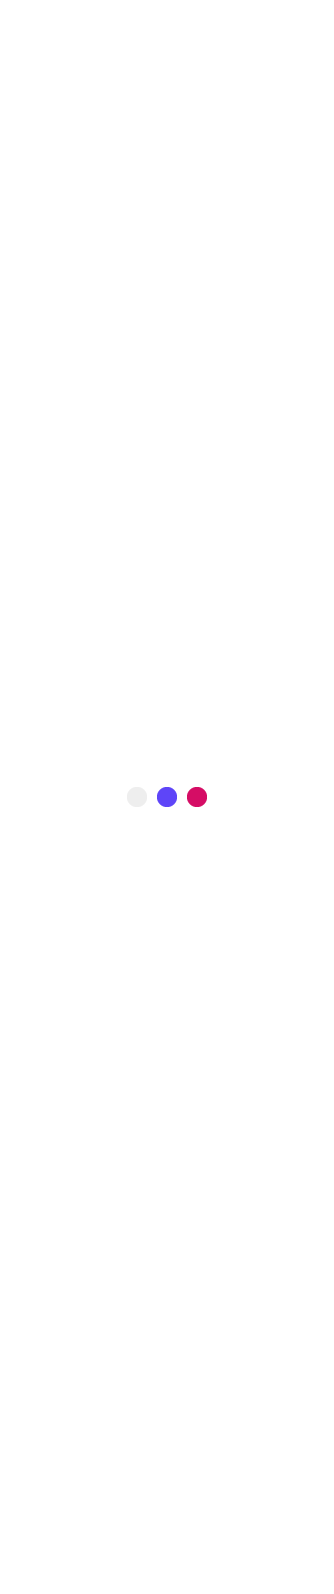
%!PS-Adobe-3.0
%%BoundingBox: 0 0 334 1594
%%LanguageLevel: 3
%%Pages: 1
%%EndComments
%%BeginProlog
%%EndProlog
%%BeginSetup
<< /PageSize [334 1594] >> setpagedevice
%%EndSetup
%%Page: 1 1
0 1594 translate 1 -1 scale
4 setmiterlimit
1 setgray
0 0 334 1594 rectfill
0.933 setgray
newpath 137 797 10 0 360 arc closepath fill
0.369 0.271 0.973 setrgbcolor
newpath 167 797 10 0 360 arc closepath fill
0.835 0.051 0.396 setrgbcolor
newpath 197 797 10 0 360 arc closepath fill
showpage
%%EOF
